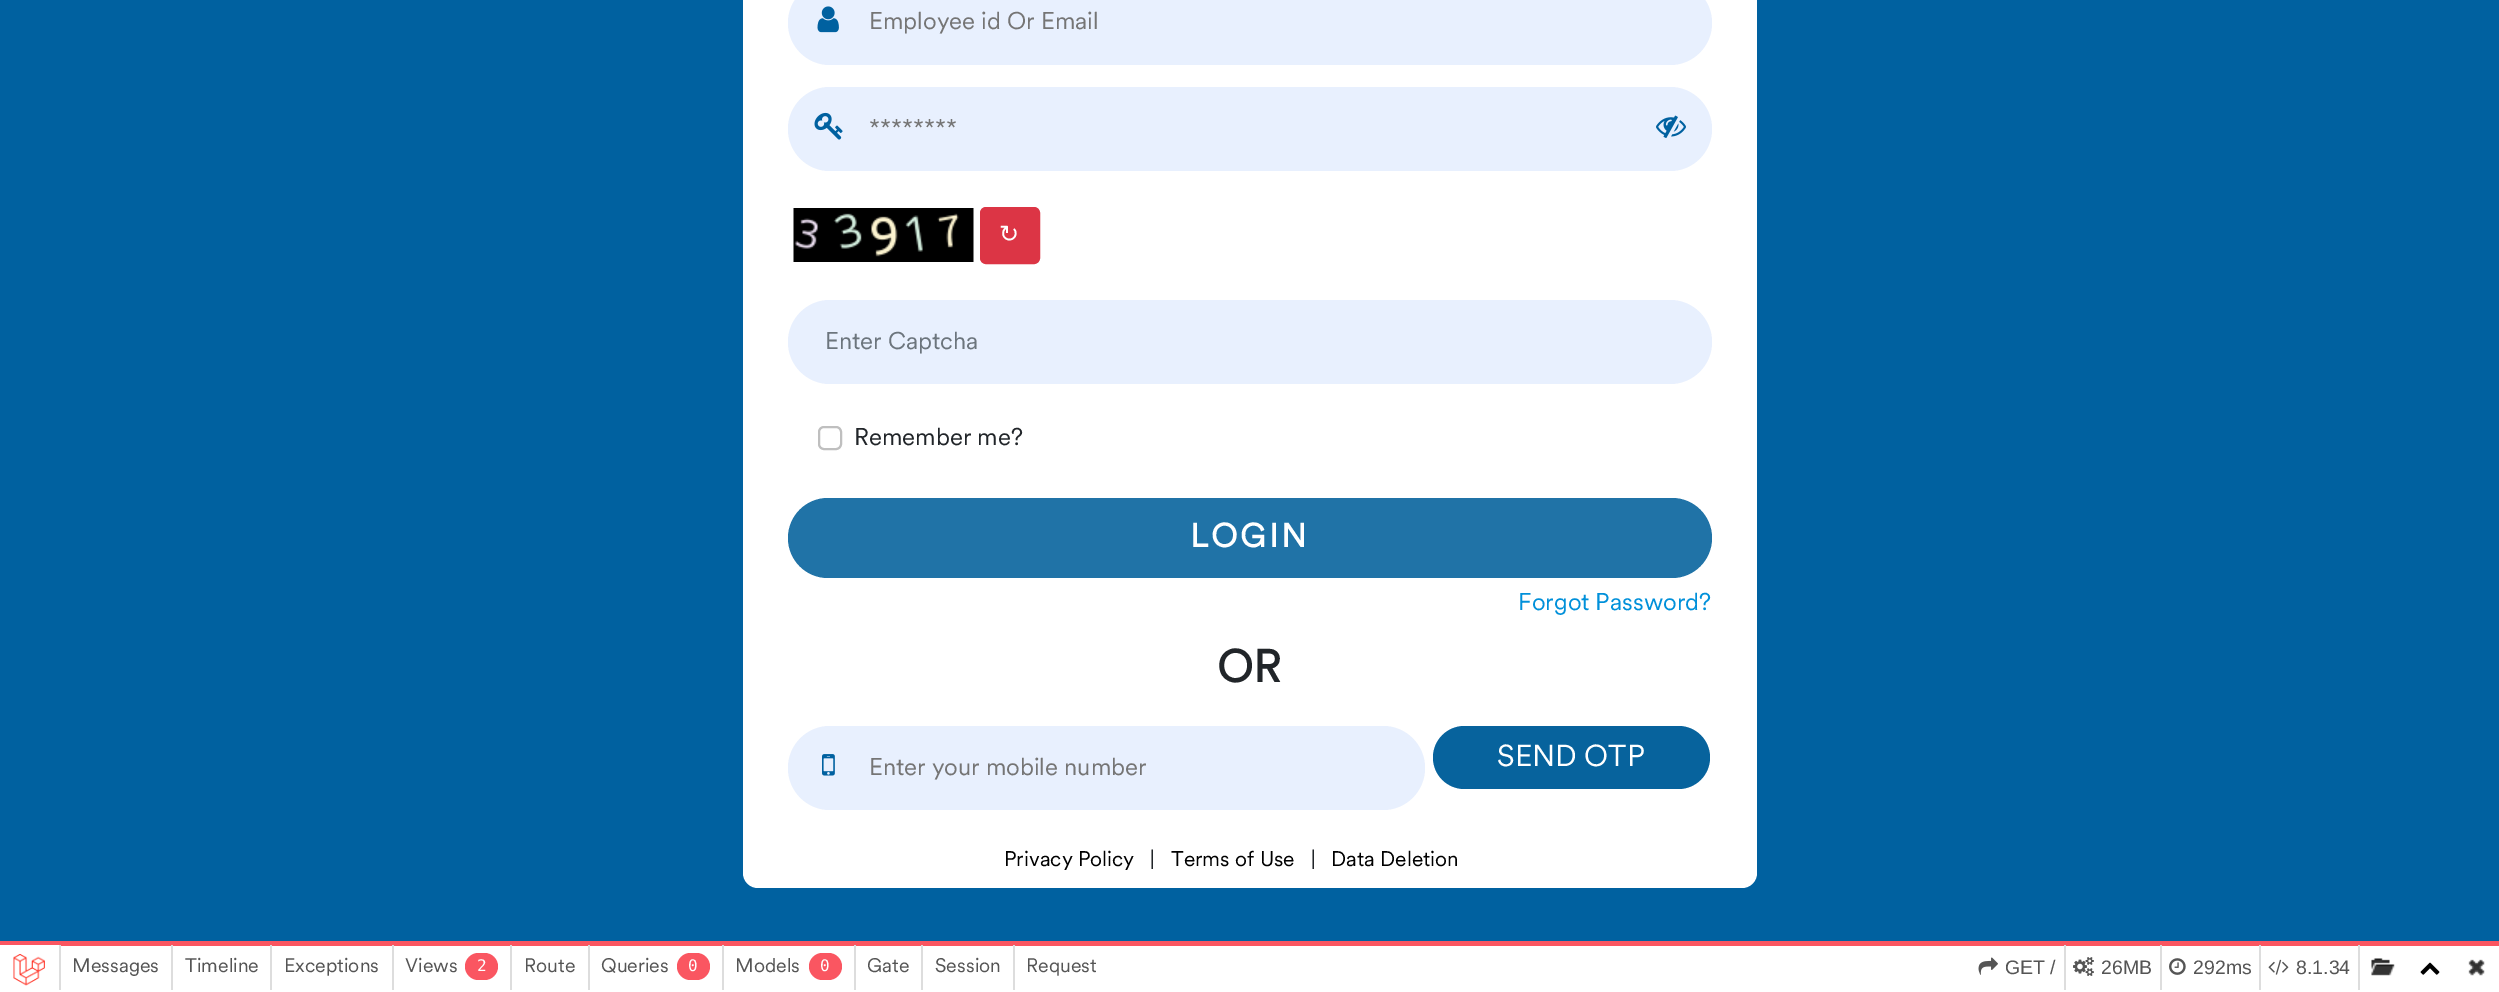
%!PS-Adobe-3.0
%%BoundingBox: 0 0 2499 992
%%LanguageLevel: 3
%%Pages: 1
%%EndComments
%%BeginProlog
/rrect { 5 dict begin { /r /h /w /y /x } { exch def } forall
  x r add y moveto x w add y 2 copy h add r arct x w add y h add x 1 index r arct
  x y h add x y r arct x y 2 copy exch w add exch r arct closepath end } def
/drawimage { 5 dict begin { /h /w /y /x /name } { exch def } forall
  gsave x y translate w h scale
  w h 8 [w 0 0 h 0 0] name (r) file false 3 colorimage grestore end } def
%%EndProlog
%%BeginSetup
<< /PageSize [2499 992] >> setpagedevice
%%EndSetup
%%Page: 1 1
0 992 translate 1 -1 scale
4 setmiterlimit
0 0.38 0.627 setrgbcolor
0 0 2499 992 rectfill
1 setgray
743 -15 1014 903 15 rrect fill
0.91 0.941 0.996 setrgbcolor
788 -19 924 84 42 rrect fill
(images/1.raw) 817 6 22 27 drawimage
788 87 924 84 42 rrect fill
(images/2.raw) 814 112 29 28 drawimage
(images/3.raw) 1656 115 30 23 drawimage
(images/4.raw) 793 208 181 54 drawimage
0.863 0.208 0.271 setrgbcolor
981 208 58 55 5 rrect gsave fill grestore
2 setlinewidth
stroke
0.91 0.941 0.996 setrgbcolor
788 300 924 84 42 rrect fill
0.749 setgray
819 427 22 22 5 rrect stroke
0.125 0.451 0.655 setrgbcolor
788 498 924 80 40 rrect fill
0.91 0.941 0.996 setrgbcolor
788 726 637 84 42 rrect fill
(images/5.raw) 822 754 13 22 drawimage
0.027 0.388 0.616 setrgbcolor
1433 726 277 63 31.5 rrect fill
1 setgray
59 946 2440 46 rectfill
0.98 0.337 0.38 setrgbcolor
0 941 2499 5 rectfill
1 setgray
0 945 59 47 rectfill
(images/6.raw) 13 954 32 32 drawimage
0.867 setgray
59 945 2 45 rectfill
171 945 2 45 rectfill
270 945 2 45 rectfill
392 945 2 45 rectfill
0.98 0.337 0.38 setrgbcolor
465 953 33 27 13.5 rrect fill
0.867 setgray
510 945 2 45 rectfill
588 945 2 45 rectfill
0.98 0.337 0.38 setrgbcolor
677 953 33 27 13.5 rrect fill
0.867 setgray
722 945 2 45 rectfill
0.98 0.337 0.38 setrgbcolor
809 953 33 27 13.5 rrect fill
0.867 setgray
854 945 2 45 rectfill
921 945 2 45 rectfill
1013 945 2 45 rectfill
2064 945 2 45 rectfill
(images/7.raw) 1978 957 20 18 drawimage
2160 945 2 45 rectfill
(images/8.raw) 2073 957 21 19 drawimage
2259 945 2 45 rectfill
(images/9.raw) 2169 958 17 17 drawimage
2358 945 2 45 rectfill
(images/10.raw) 2268 959 21 16 drawimage
(images/11.raw) 2371 958 24 18 drawimage
(images/12.raw) 2420 962 20 13 drawimage
(images/13.raw) 2468 959 17 17 drawimage
/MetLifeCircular-Regular [24 0 0 -24 0 0] selectfont
0.459 setgray
869 29 moveto (Employee id Or Email) show
869 136 moveto (********) show
/DejaVuSans-Regular [24 0 0 -24 0 0] selectfont
1 setgray
999 242 moveto (↻) show
/MetLifeCircular-Regular [24 0 0 -24 0 0] selectfont
0.424 0.459 0.49 setrgbcolor
825 349 moveto (Enter Captcha) show
0.129 0.145 0.161 setrgbcolor
854 445 moveto (Remember me?) show
/MetLifeCircular-Bold [33 0 0 -33 0 0] selectfont
1 setgray
1190 547 moveto 3 0 (LOGIN) ashow
/MetLifeCircular-Regular [24 0 0 -24 0 0] selectfont
0 0.565 0.855 setrgbcolor
1518 610 moveto (Forgot Password?) show
/MetLifeCircular-Bold [45 0 0 -45 0 0] selectfont
0.129 0.145 0.161 setrgbcolor
1217 682 moveto (OR) show
/MetLifeCircular-Regular [24 0 0 -24 0 0] selectfont
0.459 setgray
869 775 moveto (Enter your mobile number) show
/MetLifeCircular-Regular [30 0 0 -30 0 0] selectfont
1 setgray
1497 766 moveto (SEND OTP) show
/MetLifeCircular-Regular [21 0 0 -21 0 0] selectfont
0 setgray
1004 866 moveto (Privacy Policy) show
0.129 0.145 0.161 setrgbcolor
1150 866 moveto (|) show
0 setgray
1171 866 moveto (Terms of Use) show
0.129 0.145 0.161 setrgbcolor
1311 866 moveto (|) show
0 setgray
1331 866 moveto (Data Deletion) show
/MetLifeCircular-Regular [19.5 0 0 -19.5 0 0] selectfont
0.333 setgray
72 972 moveto (Messages) show
185 972 moveto (Timeline) show
284 972 moveto (Exceptions) show
405 972 moveto (Views) show
/DejaVuSansMono-Regular [16 0 0 -16 0 0] selectfont
1 setgray
477 971 moveto (2) show
/MetLifeCircular-Regular [19.5 0 0 -19.5 0 0] selectfont
0.333 setgray
524 972 moveto (Route) show
601 972 moveto (Queries) show
/DejaVuSansMono-Regular [16 0 0 -16 0 0] selectfont
1 setgray
688 971 moveto (0) show
/MetLifeCircular-Regular [19.5 0 0 -19.5 0 0] selectfont
0.333 setgray
735 972 moveto (Models) show
/DejaVuSansMono-Regular [16 0 0 -16 0 0] selectfont
1 setgray
820 971 moveto (0) show
/MetLifeCircular-Regular [19.5 0 0 -19.5 0 0] selectfont
0.333 setgray
867 972 moveto (Gate) show
935 972 moveto (Session) show
1026 972 moveto (Request) show
/LiberationSans-Regular [19.5 0 0 -19.5 0 0] selectfont
2005 974 moveto (GET /) show
2101 974 moveto (26MB) show
2193 974 moveto (292ms) show
2296 974 moveto (8.1.34) show
showpage
%%EOF
